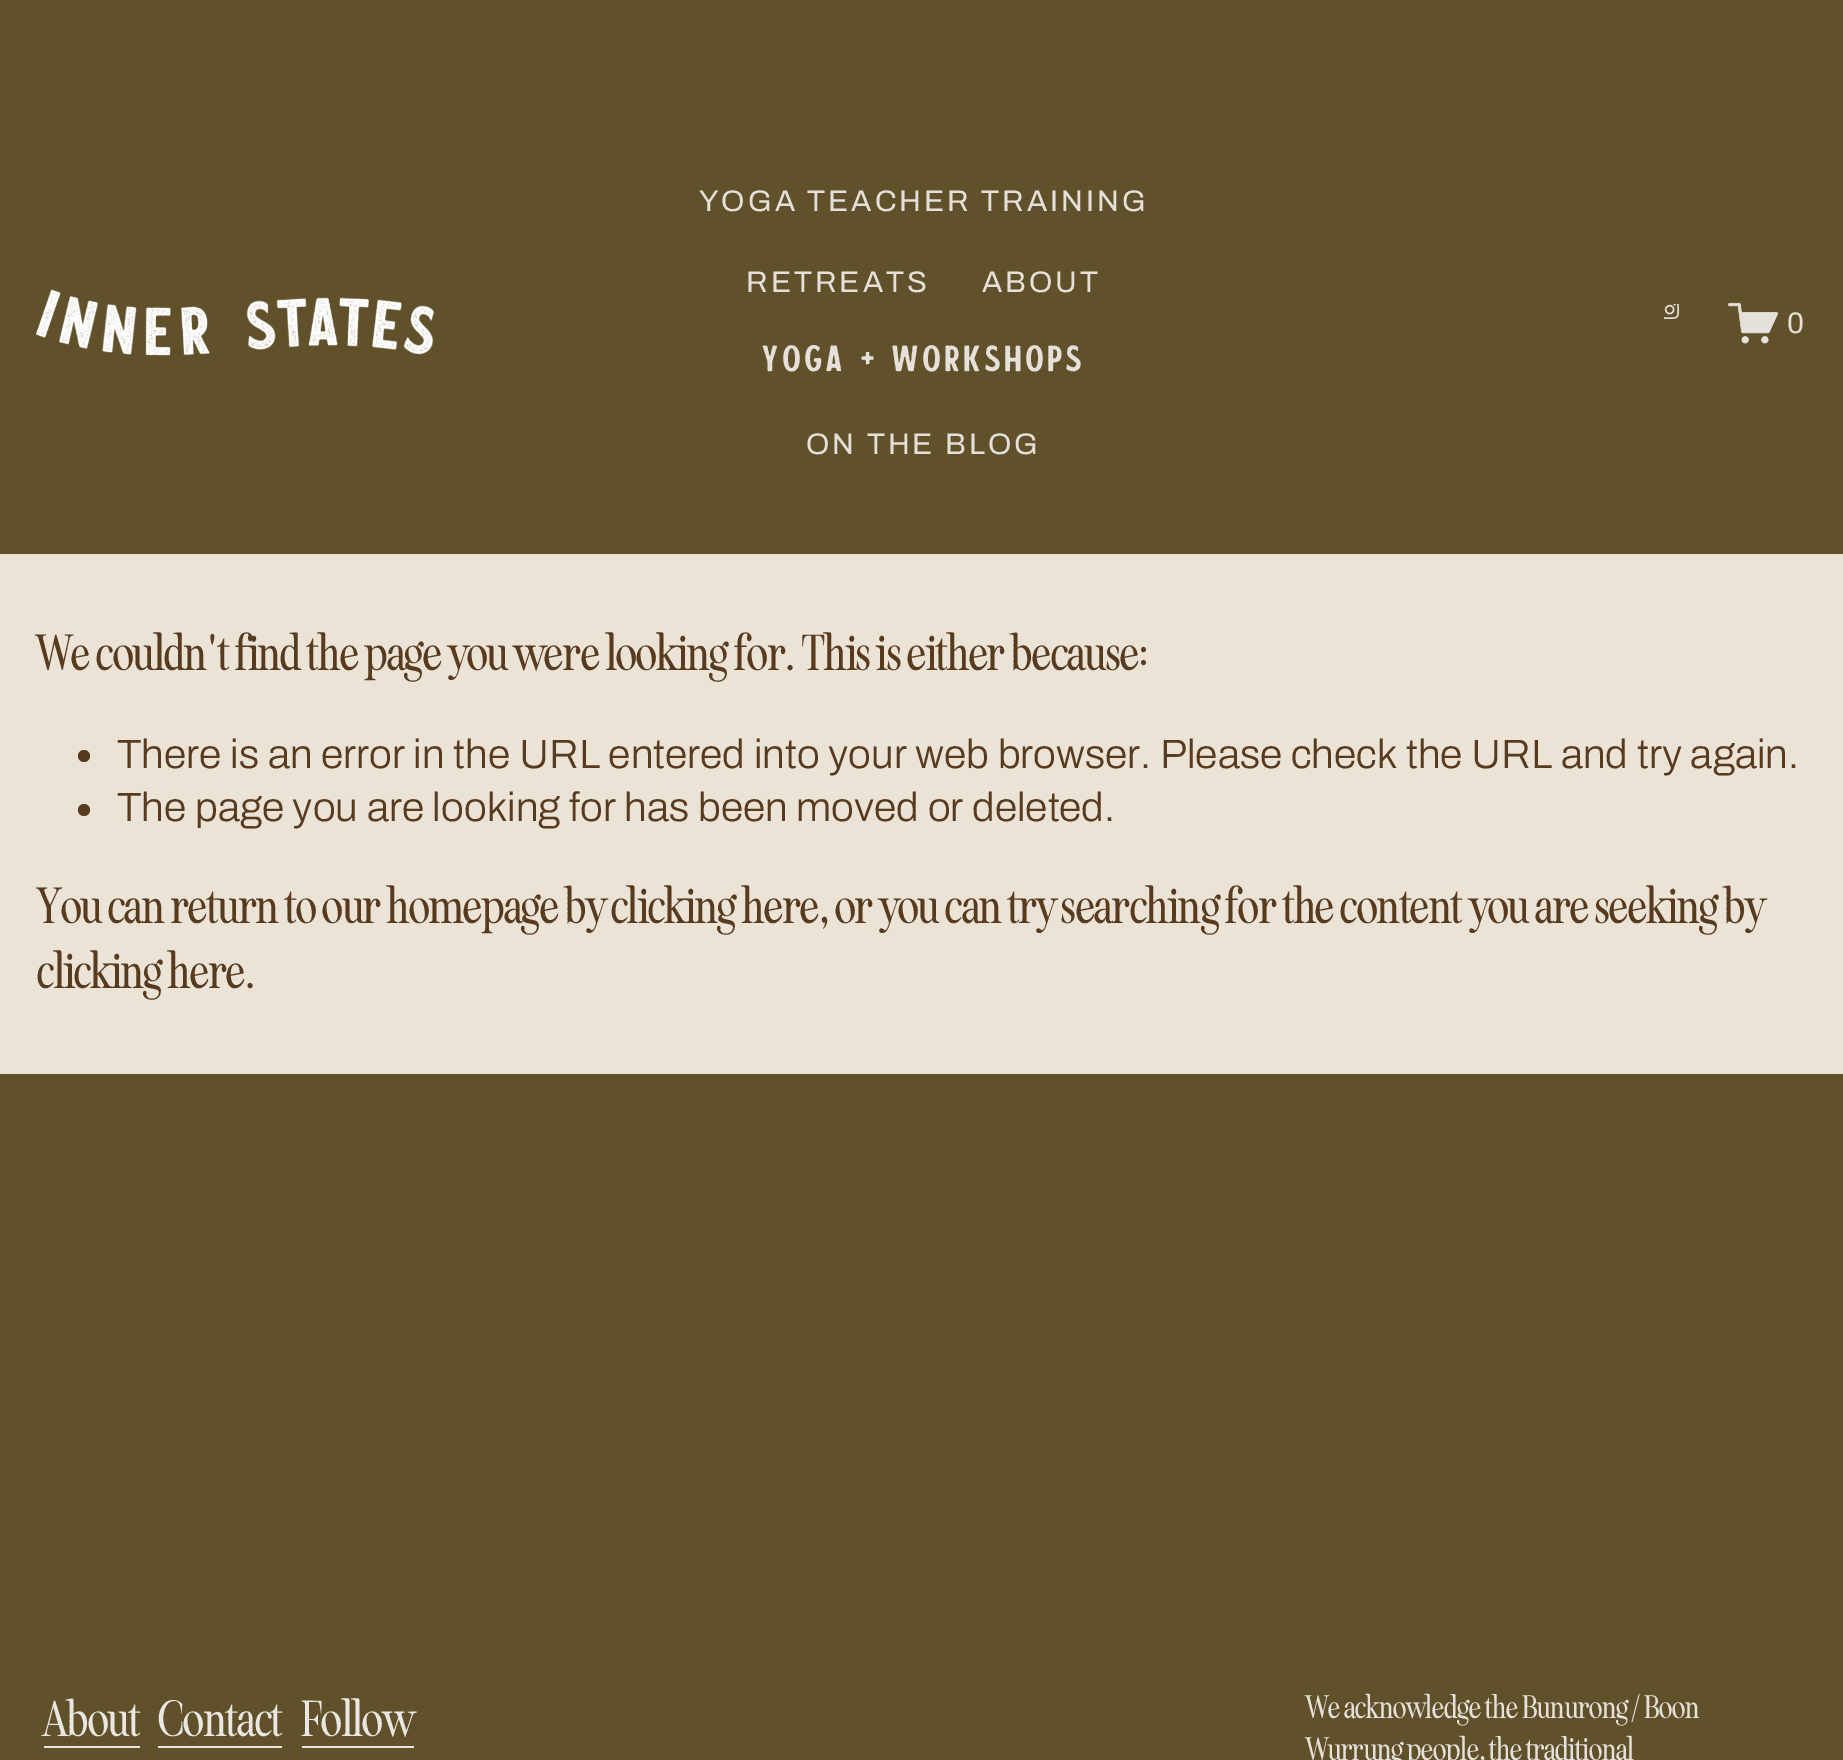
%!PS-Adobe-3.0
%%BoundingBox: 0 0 1843 1760
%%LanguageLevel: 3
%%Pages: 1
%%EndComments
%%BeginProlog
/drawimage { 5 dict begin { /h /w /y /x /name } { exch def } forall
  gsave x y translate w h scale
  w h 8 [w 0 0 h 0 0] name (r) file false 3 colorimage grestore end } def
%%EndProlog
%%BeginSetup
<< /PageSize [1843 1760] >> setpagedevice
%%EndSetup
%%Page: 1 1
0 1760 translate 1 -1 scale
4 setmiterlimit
0.925 0.89 0.843 setrgbcolor
0 0 1843 1760 rectfill
0.376 0.318 0.169 setrgbcolor
0 0 1843 554 rectfill
(images/1.raw) 36 289 398 67 drawimage
(images/2.raw) 1664 304 15 15 drawimage
(images/3.raw) 1728 302 50 42 drawimage
0.345 0.231 0.122 setrgbcolor
newpath 84 756 6 0 360 arc closepath fill
newpath 84 810 6 0 360 arc closepath fill
0.376 0.318 0.169 setrgbcolor
0 1074 1843 686 rectfill
0.918 0.902 0.882 setrgbcolor
44 1746 96 2 rectfill
158 1746 124 2 rectfill
302 1746 112 2 rectfill
/Archivo-Regular [29.75 0 0 -29.75 0 0] selectfont
0.898 0.878 0.855 setrgbcolor
699 211 moveto 3 0 (YOGA TEACHER TRAINING) ashow
746 292 moveto 3 0 (RETREATS) ashow
982 292 moveto 3 0 (ABOUT) ashow
/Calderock-Regular [36 0 0 -36 0 0] selectfont
761 371 moveto 3 0 (YOGA + WORKSHOPS) ashow
/Archivo-Regular [29.75 0 0 -29.75 0 0] selectfont
806 454 moveto 3 0 (ON THE BLOG) ashow
1787 333 moveto 3 0 (0) ashow
/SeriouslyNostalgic-Regular [50 0 0 -50 0 0] selectfont
0.345 0.231 0.122 setrgbcolor
37 670 moveto (We couldn't find the page you were looking for. This is either because:) show
/Archivo-Light [40.85 0 0 -40.85 0 0] selectfont
117 768 moveto (There is an error in the URL entered into your web browser. Please check the URL and try again.) show
117 821 moveto (The page you are looking for has been moved or deleted.) show
/SeriouslyNostalgic-Regular [50 0 0 -50 0 0] selectfont
37 923 moveto (You can return to our homepage by clicking here, or you can try searching for the content you are seeking by) show
37 988 moveto (clicking here.) show
0.918 0.902 0.882 setrgbcolor
43 1736 moveto (About) show
158 1736 moveto (Contact) show
301 1736 moveto (Follow) show
/SeriouslyNostalgic-Regular [32 0 0 -32 0 0] selectfont
0.898 0.878 0.855 setrgbcolor
1306 1718 moveto (We acknowledge the Bunurong / Boon) show
1306 1760 moveto (Wurrung people, the traditional) show
showpage
%%EOF
